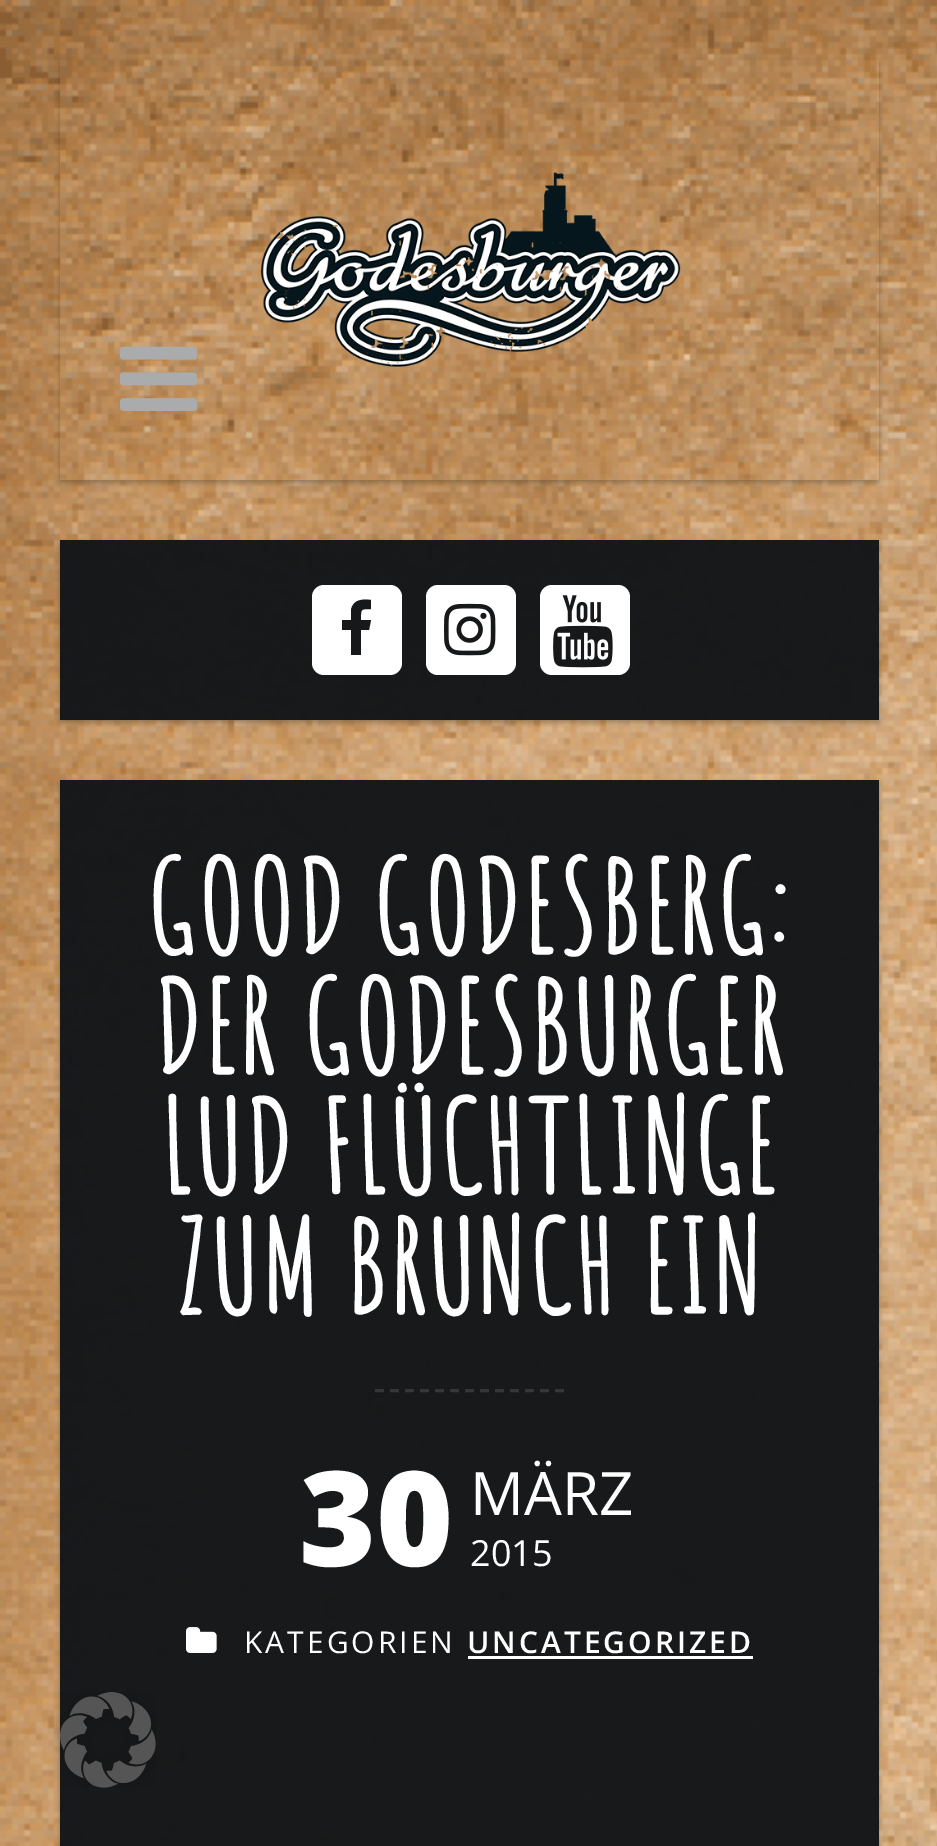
%!PS-Adobe-3.0
%%BoundingBox: 0 0 937 1846
%%LanguageLevel: 3
%%Pages: 1
%%EndComments
%%BeginProlog
/setalpha { dup .setfillconstantalpha .setstrokeconstantalpha } def
/rrect { 5 dict begin { /r /h /w /y /x } { exch def } forall
  x r add y moveto x w add y 2 copy h add r arct x w add y h add x 1 index r arct
  x y h add x y r arct x y 2 copy exch w add exch r arct closepath end } def
/softshadow { 12 dict begin { /a /b /q /h /w /y /x } { exch def } forall gsave /was 0 def
  9 -2 -9 { dup b mul 4 div /e exch def 1 sub .425 mul 2.718 exch exp 1 add a .99 .min exch div /now exch def
    1 1 now sub 1 was sub div sub setalpha /was now def
    w h .min e 2 mul add 0 gt { x e sub y e sub w e 2 mul add h e 2 mul add
      q e add b .6 mul add w h .min 2 div e add .min 0 .max rrect fill } if } for grestore end } def
/drawimage { 5 dict begin { /h /w /y /x /name } { exch def } forall
  gsave x y translate w h scale
  w h 8 [w 0 0 h 0 0] name (r) file false 3 colorimage grestore end } def
%%EndProlog
%%BeginSetup
<< /PageSize [937 1846] /PageUsesTransparency true >> setpagedevice
%%EndSetup
%%Page: 1 1
0 .pushpdf14devicefilter
0 1846 translate 1 -1 scale
4 setmiterlimit
1 setgray
0 0 937 1846 rectfill
(images/1.raw) 0 0 937 1846 drawimage
gsave
newpath 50 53 moveto 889 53 lineto 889 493 lineto 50 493 lineto closepath 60 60 moveto 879 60 lineto 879 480 lineto 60 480 lineto closepath eoclip newpath
0.039 0.078 0.078 setrgbcolor
60 63 819 420 0 3 0.28 softshadow
grestore
(images/2.raw) 261 172 420 195 drawimage
(images/3.raw) 120 346 78 65 drawimage
gsave
newpath 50 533 moveto 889 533 lineto 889 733 lineto 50 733 lineto closepath 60 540 moveto 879 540 lineto 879 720 lineto 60 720 lineto closepath eoclip newpath
0.039 0.078 0.078 setrgbcolor
60 543 819 180 0 3 0.28 softshadow
grestore
0.98 setalpha
0.078 0.086 0.094 setrgbcolor
60 540 819 180 rectfill
1 setalpha
1 setgray
312 585 90 90 12 rrect fill
0.086 0.094 0.102 setrgbcolor
newpath 371 600 moveto 371 609 lineto 360 609 361 609 361 620 curveto 371 620 lineto 369 630 lineto 361 630 lineto 361 655 lineto 351 655 lineto 351 630 lineto 342 630 lineto 342 620 lineto 351 620 lineto 351 610 lineto 353 599 363 599 371 600 curveto closepath fill
1 setgray
426 585 90 90 12 rrect fill
(images/4.raw) 444 603 52 53 drawimage
540 585 90 90 12 rrect fill
(images/5.raw) 553 595 60 73 drawimage
gsave
newpath 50 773 moveto 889 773 lineto 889 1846 lineto 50 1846 lineto closepath 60 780 moveto 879 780 lineto 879 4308 lineto 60 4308 lineto closepath eoclip newpath
0.039 0.078 0.078 setrgbcolor
60 783 819 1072 0 3 0.28 softshadow
grestore
0.98 setalpha
0.078 0.086 0.094 setrgbcolor
60 780 819 1066 rectfill
1 setalpha
0.204 0.212 0.22 setrgbcolor
3 setlinewidth
[9 6] 0 setdash
newpath 375 1390.5 moveto 564 1390.5 lineto stroke
(images/6.raw) 186 1627 31 26 drawimage
1 setgray
468 1656 285 3 rectfill
(images/7.raw) 48 1692 108 96 drawimage
/AmaticSC-Bold [126 0 0 -126 0 0] selectfont
146 954 moveto 3 0 (GOOD GODESBERG:) ashow
153 1074 moveto 3 0 (DER GODESBURGER) ashow
160 1194 moveto 3 0 (LUD FLÜCHTLINGE) ashow
176 1314 moveto 3 0 (ZUM BRUNCH EIN) ashow
/OpenSans-ExtraBold [132 0 0 -132 0 0] selectfont
299 1566 moveto (30) show
/OpenSans-Regular [60 0 0 -60 0 0] selectfont
470 1515 moveto (MÄRZ) show
/OpenSans-Regular [36 0 0 -36 0 0] selectfont
470 1566 moveto (2015) show
/OpenSans-Regular [30 0 0 -30 0 0] selectfont
244 1653 moveto 3 0 (KATEGORIEN) ashow
/OpenSans-SemiBold [30 0 0 -30 0 0] selectfont
467 1653 moveto 3 0 (UNCATEGORIZED) ashow
.poppdf14devicefilter showpage
%%EOF
